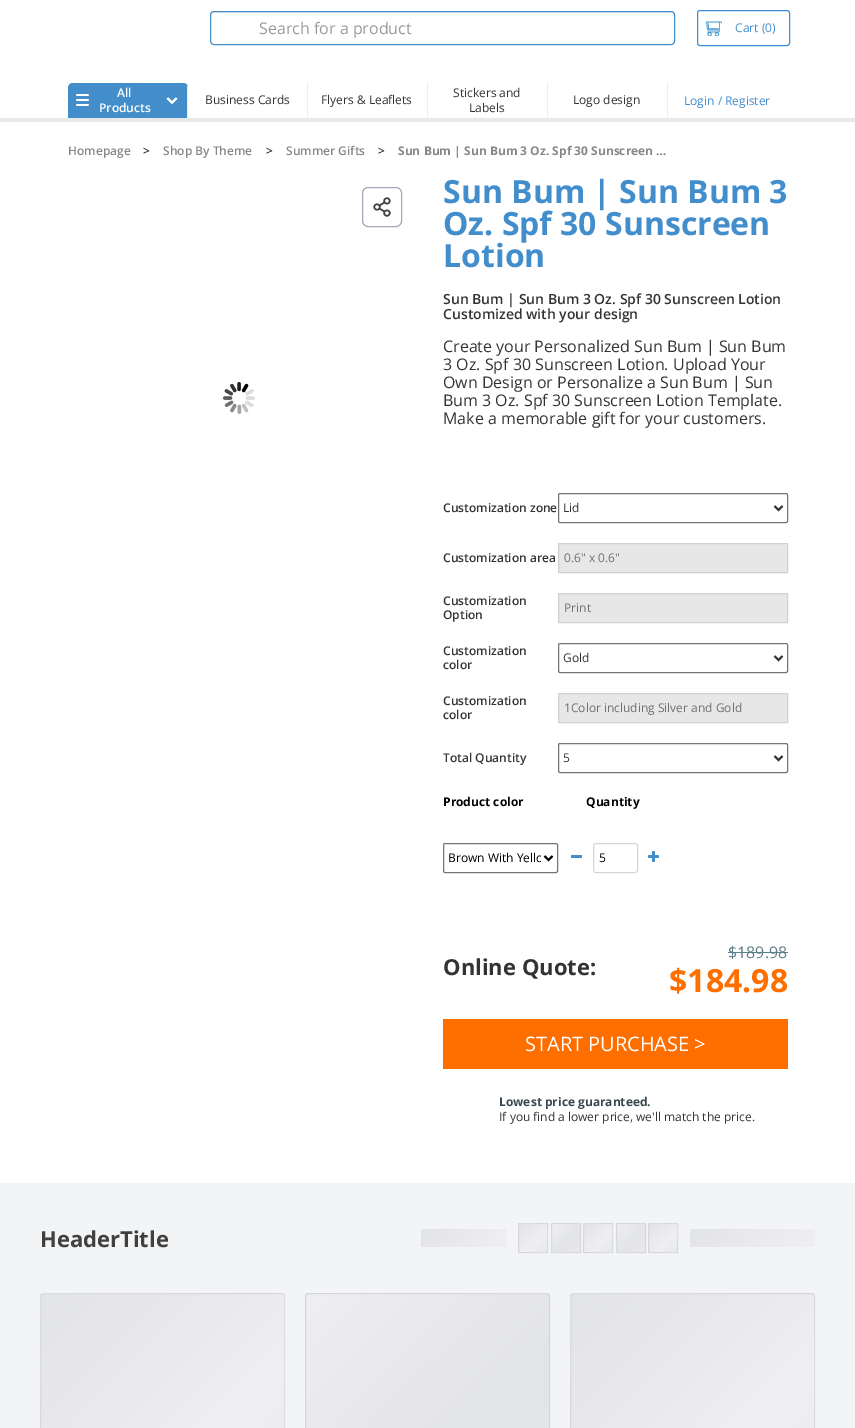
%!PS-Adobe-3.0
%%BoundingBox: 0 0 855 1428
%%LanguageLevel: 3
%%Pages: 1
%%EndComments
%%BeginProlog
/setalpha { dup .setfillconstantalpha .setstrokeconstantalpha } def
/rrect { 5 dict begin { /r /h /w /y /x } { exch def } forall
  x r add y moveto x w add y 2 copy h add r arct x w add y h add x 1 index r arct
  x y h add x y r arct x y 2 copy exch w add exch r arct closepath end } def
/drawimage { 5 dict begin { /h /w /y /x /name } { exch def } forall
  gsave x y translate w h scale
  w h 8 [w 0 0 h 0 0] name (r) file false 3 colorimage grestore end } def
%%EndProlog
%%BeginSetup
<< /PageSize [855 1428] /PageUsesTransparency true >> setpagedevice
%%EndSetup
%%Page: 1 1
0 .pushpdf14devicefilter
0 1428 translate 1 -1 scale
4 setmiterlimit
1 setgray
0 0 855 1428 rectfill
0.925 setgray
newpath 214 13 moveto 671 13 lineto 673 13 674 14 674 16 curveto 674 14 673 12 671 12 curveto 213 12 lineto 211 14 lineto 211 16 lineto 211 14 212 13 214 13 curveto closepath fill
0.267 0.553 0.796 setrgbcolor
210.5 11.5 464 33 3.5 rrect stroke
0.259 0.553 0.8 setrgbcolor
697.5 10.5 92 35 2.5 rrect stroke
(images/1.raw) 706 21 16 15 drawimage
0.267 0.553 0.796 setrgbcolor
newpath 73 83 moveto 183 83 lineto 186 83 188 85 188 88 curveto 188 118 lineto 68 118 lineto 68 88 lineto 68 85 70 83 73 83 curveto closepath fill
0.933 0.933 0.929 setrgbcolor
187 86 1 32 rectfill
(images/2.raw) 76 94 13 12 drawimage
(images/3.raw) 166 97 12 8 drawimage
307 83 1 35 rectfill
427 83 1 35 rectfill
547 83 1 35 rectfill
667 83 1 35 rectfill
0.914 setgray
0 118 855 4 rectfill
0.635 0.663 0.737 setrgbcolor
362.5 187.5 39 39 5.5 rrect stroke
(images/4.raw) 373 197 18 20 drawimage
(images/5.raw) 223 382 32 32 drawimage
0.463 setgray
558.5 493.5 229 29 1.5 rrect stroke
0.2 setgray
2 setlinewidth
newpath 774.5 506 moveto 778.5 510 lineto 782.5 506 lineto stroke
0.906 setgray
newpath 558.5 543.5 moveto 787.5 543.5 lineto 787.5 572.5 lineto 558.5 572.5 lineto closepath gsave fill grestore
0.82 setgray
1 setlinewidth
stroke
0.906 setgray
newpath 558.5 593.5 moveto 787.5 593.5 lineto 787.5 622.5 lineto 558.5 622.5 lineto closepath gsave fill grestore
0.82 setgray
stroke
0.463 setgray
558.5 643.5 229 29 1.5 rrect stroke
0.2 setgray
2 setlinewidth
newpath 774.5 656 moveto 778.5 660 lineto 782.5 656 lineto stroke
0.906 setgray
newpath 558.5 693.5 moveto 787.5 693.5 lineto 787.5 722.5 lineto 558.5 722.5 lineto closepath gsave fill grestore
0.82 setgray
1 setlinewidth
stroke
0.463 setgray
558.5 743.5 229 29 1.5 rrect stroke
0.2 setgray
2 setlinewidth
newpath 774.5 756 moveto 778.5 760 lineto 782.5 756 lineto stroke
0.463 setgray
1 setlinewidth
443.5 843.5 114 29 1.5 rrect stroke
0 setgray
2 setlinewidth
newpath 544.5 856 moveto 548.5 860 lineto 552.5 856 lineto stroke
0.267 0.553 0.796 setrgbcolor
571 855 11 3 rectfill
0.839 setgray
1 setlinewidth
593.5 843.5 44 29 2.5 rrect stroke
(images/6.raw) 648 851 11 11 drawimage
0.376 0.49 0.545 setrgbcolor
728 952 60 1 rectfill
1 0.435 0 setrgbcolor
443 1019 345 50 rectfill
0.953 0.957 0.965 setrgbcolor
0 1183 855 245 rectfill
gsave newpath 421 1229 moveto 506 1229 lineto 506 1247 lineto 421 1247 lineto closepath clip newpath
<< /ShadingType 2 /ColorSpace /DeviceRGB /Coords [502 1149 681 1328] /Extend [true true] /Function << /FunctionType 3 /Domain [0 1] /Functions [<< /FunctionType 2 /Domain [0 1] /C0 [0.89 0.894 0.902] /C1 [0.937 0.937 0.945] /N 1 >> << /FunctionType 2 /Domain [0 1] /C0 [0.937 0.937 0.945] /C1 [0.89 0.894 0.902] /N 1 >> << /FunctionType 2 /Domain [0 1] /C0 [0.89 0.894 0.902] /C1 [0.937 0.937 0.945] /N 1 >> << /FunctionType 2 /Domain [0 1] /C0 [0.937 0.937 0.945] /C1 [0.89 0.894 0.902] /N 1 >>] /Bounds [0.25 0.5 0.75] /Encode [0 1 0 1 0 1 0 1] >> >> shfill grestore
gsave newpath 518 1223 moveto 519 1223 lineto 519 1224 lineto 518 1224 lineto closepath clip newpath
<< /ShadingType 2 /ColorSpace /DeviceRGB /Coords [428 1175 498 1245] /Extend [true true] /Function << /FunctionType 3 /Domain [0 1] /Functions [<< /FunctionType 2 /Domain [0 1] /C0 [0.89 0.894 0.902] /C1 [0.937 0.937 0.945] /N 1 >> << /FunctionType 2 /Domain [0 1] /C0 [0.937 0.937 0.945] /C1 [0.89 0.894 0.902] /N 1 >> << /FunctionType 2 /Domain [0 1] /C0 [0.89 0.894 0.902] /C1 [0.937 0.937 0.945] /N 1 >> << /FunctionType 2 /Domain [0 1] /C0 [0.937 0.937 0.945] /C1 [0.89 0.894 0.902] /N 1 >>] /Bounds [0.25 0.5 0.75] /Encode [0 1 0 1 0 1 0 1] >> >> shfill grestore
gsave newpath 519 1223 moveto 548 1223 lineto 548 1224 lineto 519 1224 lineto closepath clip newpath
<< /ShadingType 2 /ColorSpace /DeviceRGB /Coords [540 1175 610 1245] /Extend [true true] /Function << /FunctionType 3 /Domain [0 1] /Functions [<< /FunctionType 2 /Domain [0 1] /C0 [0.89 0.894 0.902] /C1 [0.937 0.937 0.945] /N 1 >> << /FunctionType 2 /Domain [0 1] /C0 [0.937 0.937 0.945] /C1 [0.89 0.894 0.902] /N 1 >> << /FunctionType 2 /Domain [0 1] /C0 [0.89 0.894 0.902] /C1 [0.937 0.937 0.945] /N 1 >> << /FunctionType 2 /Domain [0 1] /C0 [0.937 0.937 0.945] /C1 [0.89 0.894 0.902] /N 1 >>] /Bounds [0.25 0.5 0.75] /Encode [0 1 0 1 0 1 0 1] >> >> shfill grestore
gsave newpath 518 1224 moveto 519 1224 lineto 519 1252 lineto 518 1252 lineto closepath clip newpath
<< /ShadingType 2 /ColorSpace /DeviceRGB /Coords [428 1203 498 1273] /Extend [true true] /Function << /FunctionType 3 /Domain [0 1] /Functions [<< /FunctionType 2 /Domain [0 1] /C0 [0.89 0.894 0.902] /C1 [0.937 0.937 0.945] /N 1 >> << /FunctionType 2 /Domain [0 1] /C0 [0.937 0.937 0.945] /C1 [0.89 0.894 0.902] /N 1 >> << /FunctionType 2 /Domain [0 1] /C0 [0.89 0.894 0.902] /C1 [0.937 0.937 0.945] /N 1 >> << /FunctionType 2 /Domain [0 1] /C0 [0.937 0.937 0.945] /C1 [0.89 0.894 0.902] /N 1 >>] /Bounds [0.25 0.5 0.75] /Encode [0 1 0 1 0 1 0 1] >> >> shfill grestore
gsave newpath 519 1224 moveto 548 1224 lineto 548 1252 lineto 519 1252 lineto closepath clip newpath
<< /ShadingType 2 /ColorSpace /DeviceRGB /Coords [540 1203 610 1273] /Extend [true true] /Function << /FunctionType 3 /Domain [0 1] /Functions [<< /FunctionType 2 /Domain [0 1] /C0 [0.89 0.894 0.902] /C1 [0.937 0.937 0.945] /N 1 >> << /FunctionType 2 /Domain [0 1] /C0 [0.937 0.937 0.945] /C1 [0.89 0.894 0.902] /N 1 >> << /FunctionType 2 /Domain [0 1] /C0 [0.89 0.894 0.902] /C1 [0.937 0.937 0.945] /N 1 >> << /FunctionType 2 /Domain [0 1] /C0 [0.937 0.937 0.945] /C1 [0.89 0.894 0.902] /N 1 >>] /Bounds [0.25 0.5 0.75] /Encode [0 1 0 1 0 1 0 1] >> >> shfill grestore
gsave newpath 518 1252 moveto 519 1252 lineto 519 1253 lineto 518 1253 lineto closepath clip newpath
<< /ShadingType 2 /ColorSpace /DeviceRGB /Coords [428 1231 498 1301] /Extend [true true] /Function << /FunctionType 3 /Domain [0 1] /Functions [<< /FunctionType 2 /Domain [0 1] /C0 [0.89 0.894 0.902] /C1 [0.937 0.937 0.945] /N 1 >> << /FunctionType 2 /Domain [0 1] /C0 [0.937 0.937 0.945] /C1 [0.89 0.894 0.902] /N 1 >> << /FunctionType 2 /Domain [0 1] /C0 [0.89 0.894 0.902] /C1 [0.937 0.937 0.945] /N 1 >> << /FunctionType 2 /Domain [0 1] /C0 [0.937 0.937 0.945] /C1 [0.89 0.894 0.902] /N 1 >>] /Bounds [0.25 0.5 0.75] /Encode [0 1 0 1 0 1 0 1] >> >> shfill grestore
gsave newpath 519 1252 moveto 548 1252 lineto 548 1253 lineto 519 1253 lineto closepath clip newpath
<< /ShadingType 2 /ColorSpace /DeviceRGB /Coords [540 1231 610 1301] /Extend [true true] /Function << /FunctionType 3 /Domain [0 1] /Functions [<< /FunctionType 2 /Domain [0 1] /C0 [0.89 0.894 0.902] /C1 [0.937 0.937 0.945] /N 1 >> << /FunctionType 2 /Domain [0 1] /C0 [0.937 0.937 0.945] /C1 [0.89 0.894 0.902] /N 1 >> << /FunctionType 2 /Domain [0 1] /C0 [0.89 0.894 0.902] /C1 [0.937 0.937 0.945] /N 1 >> << /FunctionType 2 /Domain [0 1] /C0 [0.937 0.937 0.945] /C1 [0.89 0.894 0.902] /N 1 >>] /Bounds [0.25 0.5 0.75] /Encode [0 1 0 1 0 1 0 1] >> >> shfill grestore
0.17 setalpha
0.522 0.529 0.541 setrgbcolor
518.5 1223.5 29 29 rectstroke
1 setalpha
gsave newpath 551 1223 moveto 552 1223 lineto 552 1224 lineto 551 1224 lineto closepath clip newpath
<< /ShadingType 2 /ColorSpace /DeviceRGB /Coords [461 1175 531 1245] /Extend [true true] /Function << /FunctionType 3 /Domain [0 1] /Functions [<< /FunctionType 2 /Domain [0 1] /C0 [0.937 0.937 0.945] /C1 [0.89 0.894 0.902] /N 1 >> << /FunctionType 2 /Domain [0 1] /C0 [0.89 0.894 0.902] /C1 [0.937 0.937 0.945] /N 1 >> << /FunctionType 2 /Domain [0 1] /C0 [0.937 0.937 0.945] /C1 [0.89 0.894 0.902] /N 1 >> << /FunctionType 2 /Domain [0 1] /C0 [0.89 0.894 0.902] /C1 [0.937 0.937 0.945] /N 1 >>] /Bounds [0.25 0.5 0.75] /Encode [0 1 0 1 0 1 0 1] >> >> shfill grestore
gsave newpath 552 1223 moveto 581 1223 lineto 581 1224 lineto 552 1224 lineto closepath clip newpath
<< /ShadingType 2 /ColorSpace /DeviceRGB /Coords [573 1175 643 1245] /Extend [true true] /Function << /FunctionType 3 /Domain [0 1] /Functions [<< /FunctionType 2 /Domain [0 1] /C0 [0.937 0.937 0.945] /C1 [0.89 0.894 0.902] /N 1 >> << /FunctionType 2 /Domain [0 1] /C0 [0.89 0.894 0.902] /C1 [0.937 0.937 0.945] /N 1 >> << /FunctionType 2 /Domain [0 1] /C0 [0.937 0.937 0.945] /C1 [0.89 0.894 0.902] /N 1 >> << /FunctionType 2 /Domain [0 1] /C0 [0.89 0.894 0.902] /C1 [0.937 0.937 0.945] /N 1 >>] /Bounds [0.25 0.5 0.75] /Encode [0 1 0 1 0 1 0 1] >> >> shfill grestore
gsave newpath 551 1224 moveto 552 1224 lineto 552 1252 lineto 551 1252 lineto closepath clip newpath
<< /ShadingType 2 /ColorSpace /DeviceRGB /Coords [461 1203 531 1273] /Extend [true true] /Function << /FunctionType 3 /Domain [0 1] /Functions [<< /FunctionType 2 /Domain [0 1] /C0 [0.937 0.937 0.945] /C1 [0.89 0.894 0.902] /N 1 >> << /FunctionType 2 /Domain [0 1] /C0 [0.89 0.894 0.902] /C1 [0.937 0.937 0.945] /N 1 >> << /FunctionType 2 /Domain [0 1] /C0 [0.937 0.937 0.945] /C1 [0.89 0.894 0.902] /N 1 >> << /FunctionType 2 /Domain [0 1] /C0 [0.89 0.894 0.902] /C1 [0.937 0.937 0.945] /N 1 >>] /Bounds [0.25 0.5 0.75] /Encode [0 1 0 1 0 1 0 1] >> >> shfill grestore
gsave newpath 552 1224 moveto 581 1224 lineto 581 1252 lineto 552 1252 lineto closepath clip newpath
<< /ShadingType 2 /ColorSpace /DeviceRGB /Coords [573 1203 643 1273] /Extend [true true] /Function << /FunctionType 3 /Domain [0 1] /Functions [<< /FunctionType 2 /Domain [0 1] /C0 [0.937 0.937 0.945] /C1 [0.89 0.894 0.902] /N 1 >> << /FunctionType 2 /Domain [0 1] /C0 [0.89 0.894 0.902] /C1 [0.937 0.937 0.945] /N 1 >> << /FunctionType 2 /Domain [0 1] /C0 [0.937 0.937 0.945] /C1 [0.89 0.894 0.902] /N 1 >> << /FunctionType 2 /Domain [0 1] /C0 [0.89 0.894 0.902] /C1 [0.937 0.937 0.945] /N 1 >>] /Bounds [0.25 0.5 0.75] /Encode [0 1 0 1 0 1 0 1] >> >> shfill grestore
gsave newpath 551 1252 moveto 552 1252 lineto 552 1253 lineto 551 1253 lineto closepath clip newpath
<< /ShadingType 2 /ColorSpace /DeviceRGB /Coords [461 1231 531 1301] /Extend [true true] /Function << /FunctionType 3 /Domain [0 1] /Functions [<< /FunctionType 2 /Domain [0 1] /C0 [0.937 0.937 0.945] /C1 [0.89 0.894 0.902] /N 1 >> << /FunctionType 2 /Domain [0 1] /C0 [0.89 0.894 0.902] /C1 [0.937 0.937 0.945] /N 1 >> << /FunctionType 2 /Domain [0 1] /C0 [0.937 0.937 0.945] /C1 [0.89 0.894 0.902] /N 1 >> << /FunctionType 2 /Domain [0 1] /C0 [0.89 0.894 0.902] /C1 [0.937 0.937 0.945] /N 1 >>] /Bounds [0.25 0.5 0.75] /Encode [0 1 0 1 0 1 0 1] >> >> shfill grestore
gsave newpath 552 1252 moveto 581 1252 lineto 581 1253 lineto 552 1253 lineto closepath clip newpath
<< /ShadingType 2 /ColorSpace /DeviceRGB /Coords [573 1231 643 1301] /Extend [true true] /Function << /FunctionType 3 /Domain [0 1] /Functions [<< /FunctionType 2 /Domain [0 1] /C0 [0.937 0.937 0.945] /C1 [0.89 0.894 0.902] /N 1 >> << /FunctionType 2 /Domain [0 1] /C0 [0.89 0.894 0.902] /C1 [0.937 0.937 0.945] /N 1 >> << /FunctionType 2 /Domain [0 1] /C0 [0.937 0.937 0.945] /C1 [0.89 0.894 0.902] /N 1 >> << /FunctionType 2 /Domain [0 1] /C0 [0.89 0.894 0.902] /C1 [0.937 0.937 0.945] /N 1 >>] /Bounds [0.25 0.5 0.75] /Encode [0 1 0 1 0 1 0 1] >> >> shfill grestore
0.17 setalpha
551.5 1223.5 29 29 rectstroke
1 setalpha
gsave newpath 583 1223 moveto 584 1223 lineto 584 1224 lineto 583 1224 lineto closepath clip newpath
<< /ShadingType 2 /ColorSpace /DeviceRGB /Coords [493 1175 563 1245] /Extend [true true] /Function << /FunctionType 3 /Domain [0 1] /Functions [<< /FunctionType 2 /Domain [0 1] /C0 [0.89 0.894 0.902] /C1 [0.937 0.937 0.945] /N 1 >> << /FunctionType 2 /Domain [0 1] /C0 [0.937 0.937 0.945] /C1 [0.89 0.894 0.902] /N 1 >> << /FunctionType 2 /Domain [0 1] /C0 [0.89 0.894 0.902] /C1 [0.937 0.937 0.945] /N 1 >> << /FunctionType 2 /Domain [0 1] /C0 [0.937 0.937 0.945] /C1 [0.89 0.894 0.902] /N 1 >>] /Bounds [0.25 0.5 0.75] /Encode [0 1 0 1 0 1 0 1] >> >> shfill grestore
gsave newpath 584 1223 moveto 613 1223 lineto 613 1224 lineto 584 1224 lineto closepath clip newpath
<< /ShadingType 2 /ColorSpace /DeviceRGB /Coords [605 1175 675 1245] /Extend [true true] /Function << /FunctionType 3 /Domain [0 1] /Functions [<< /FunctionType 2 /Domain [0 1] /C0 [0.89 0.894 0.902] /C1 [0.937 0.937 0.945] /N 1 >> << /FunctionType 2 /Domain [0 1] /C0 [0.937 0.937 0.945] /C1 [0.89 0.894 0.902] /N 1 >> << /FunctionType 2 /Domain [0 1] /C0 [0.89 0.894 0.902] /C1 [0.937 0.937 0.945] /N 1 >> << /FunctionType 2 /Domain [0 1] /C0 [0.937 0.937 0.945] /C1 [0.89 0.894 0.902] /N 1 >>] /Bounds [0.25 0.5 0.75] /Encode [0 1 0 1 0 1 0 1] >> >> shfill grestore
gsave newpath 583 1224 moveto 584 1224 lineto 584 1252 lineto 583 1252 lineto closepath clip newpath
<< /ShadingType 2 /ColorSpace /DeviceRGB /Coords [493 1203 563 1273] /Extend [true true] /Function << /FunctionType 3 /Domain [0 1] /Functions [<< /FunctionType 2 /Domain [0 1] /C0 [0.89 0.894 0.902] /C1 [0.937 0.937 0.945] /N 1 >> << /FunctionType 2 /Domain [0 1] /C0 [0.937 0.937 0.945] /C1 [0.89 0.894 0.902] /N 1 >> << /FunctionType 2 /Domain [0 1] /C0 [0.89 0.894 0.902] /C1 [0.937 0.937 0.945] /N 1 >> << /FunctionType 2 /Domain [0 1] /C0 [0.937 0.937 0.945] /C1 [0.89 0.894 0.902] /N 1 >>] /Bounds [0.25 0.5 0.75] /Encode [0 1 0 1 0 1 0 1] >> >> shfill grestore
gsave newpath 584 1224 moveto 613 1224 lineto 613 1252 lineto 584 1252 lineto closepath clip newpath
<< /ShadingType 2 /ColorSpace /DeviceRGB /Coords [605 1203 675 1273] /Extend [true true] /Function << /FunctionType 3 /Domain [0 1] /Functions [<< /FunctionType 2 /Domain [0 1] /C0 [0.89 0.894 0.902] /C1 [0.937 0.937 0.945] /N 1 >> << /FunctionType 2 /Domain [0 1] /C0 [0.937 0.937 0.945] /C1 [0.89 0.894 0.902] /N 1 >> << /FunctionType 2 /Domain [0 1] /C0 [0.89 0.894 0.902] /C1 [0.937 0.937 0.945] /N 1 >> << /FunctionType 2 /Domain [0 1] /C0 [0.937 0.937 0.945] /C1 [0.89 0.894 0.902] /N 1 >>] /Bounds [0.25 0.5 0.75] /Encode [0 1 0 1 0 1 0 1] >> >> shfill grestore
gsave newpath 583 1252 moveto 584 1252 lineto 584 1253 lineto 583 1253 lineto closepath clip newpath
<< /ShadingType 2 /ColorSpace /DeviceRGB /Coords [493 1231 563 1301] /Extend [true true] /Function << /FunctionType 3 /Domain [0 1] /Functions [<< /FunctionType 2 /Domain [0 1] /C0 [0.89 0.894 0.902] /C1 [0.937 0.937 0.945] /N 1 >> << /FunctionType 2 /Domain [0 1] /C0 [0.937 0.937 0.945] /C1 [0.89 0.894 0.902] /N 1 >> << /FunctionType 2 /Domain [0 1] /C0 [0.89 0.894 0.902] /C1 [0.937 0.937 0.945] /N 1 >> << /FunctionType 2 /Domain [0 1] /C0 [0.937 0.937 0.945] /C1 [0.89 0.894 0.902] /N 1 >>] /Bounds [0.25 0.5 0.75] /Encode [0 1 0 1 0 1 0 1] >> >> shfill grestore
gsave newpath 584 1252 moveto 613 1252 lineto 613 1253 lineto 584 1253 lineto closepath clip newpath
<< /ShadingType 2 /ColorSpace /DeviceRGB /Coords [605 1231 675 1301] /Extend [true true] /Function << /FunctionType 3 /Domain [0 1] /Functions [<< /FunctionType 2 /Domain [0 1] /C0 [0.89 0.894 0.902] /C1 [0.937 0.937 0.945] /N 1 >> << /FunctionType 2 /Domain [0 1] /C0 [0.937 0.937 0.945] /C1 [0.89 0.894 0.902] /N 1 >> << /FunctionType 2 /Domain [0 1] /C0 [0.89 0.894 0.902] /C1 [0.937 0.937 0.945] /N 1 >> << /FunctionType 2 /Domain [0 1] /C0 [0.937 0.937 0.945] /C1 [0.89 0.894 0.902] /N 1 >>] /Bounds [0.25 0.5 0.75] /Encode [0 1 0 1 0 1 0 1] >> >> shfill grestore
0.17 setalpha
583.5 1223.5 29 29 rectstroke
1 setalpha
gsave newpath 616 1223 moveto 617 1223 lineto 617 1224 lineto 616 1224 lineto closepath clip newpath
<< /ShadingType 2 /ColorSpace /DeviceRGB /Coords [526 1175 596 1245] /Extend [true true] /Function << /FunctionType 3 /Domain [0 1] /Functions [<< /FunctionType 2 /Domain [0 1] /C0 [0.937 0.937 0.945] /C1 [0.89 0.894 0.902] /N 1 >> << /FunctionType 2 /Domain [0 1] /C0 [0.89 0.894 0.902] /C1 [0.937 0.937 0.945] /N 1 >> << /FunctionType 2 /Domain [0 1] /C0 [0.937 0.937 0.945] /C1 [0.89 0.894 0.902] /N 1 >> << /FunctionType 2 /Domain [0 1] /C0 [0.89 0.894 0.902] /C1 [0.937 0.937 0.945] /N 1 >>] /Bounds [0.25 0.5 0.75] /Encode [0 1 0 1 0 1 0 1] >> >> shfill grestore
gsave newpath 617 1223 moveto 646 1223 lineto 646 1224 lineto 617 1224 lineto closepath clip newpath
<< /ShadingType 2 /ColorSpace /DeviceRGB /Coords [638 1175 708 1245] /Extend [true true] /Function << /FunctionType 3 /Domain [0 1] /Functions [<< /FunctionType 2 /Domain [0 1] /C0 [0.937 0.937 0.945] /C1 [0.89 0.894 0.902] /N 1 >> << /FunctionType 2 /Domain [0 1] /C0 [0.89 0.894 0.902] /C1 [0.937 0.937 0.945] /N 1 >> << /FunctionType 2 /Domain [0 1] /C0 [0.937 0.937 0.945] /C1 [0.89 0.894 0.902] /N 1 >> << /FunctionType 2 /Domain [0 1] /C0 [0.89 0.894 0.902] /C1 [0.937 0.937 0.945] /N 1 >>] /Bounds [0.25 0.5 0.75] /Encode [0 1 0 1 0 1 0 1] >> >> shfill grestore
gsave newpath 616 1224 moveto 617 1224 lineto 617 1252 lineto 616 1252 lineto closepath clip newpath
<< /ShadingType 2 /ColorSpace /DeviceRGB /Coords [526 1203 596 1273] /Extend [true true] /Function << /FunctionType 3 /Domain [0 1] /Functions [<< /FunctionType 2 /Domain [0 1] /C0 [0.937 0.937 0.945] /C1 [0.89 0.894 0.902] /N 1 >> << /FunctionType 2 /Domain [0 1] /C0 [0.89 0.894 0.902] /C1 [0.937 0.937 0.945] /N 1 >> << /FunctionType 2 /Domain [0 1] /C0 [0.937 0.937 0.945] /C1 [0.89 0.894 0.902] /N 1 >> << /FunctionType 2 /Domain [0 1] /C0 [0.89 0.894 0.902] /C1 [0.937 0.937 0.945] /N 1 >>] /Bounds [0.25 0.5 0.75] /Encode [0 1 0 1 0 1 0 1] >> >> shfill grestore
gsave newpath 617 1224 moveto 646 1224 lineto 646 1252 lineto 617 1252 lineto closepath clip newpath
<< /ShadingType 2 /ColorSpace /DeviceRGB /Coords [638 1203 708 1273] /Extend [true true] /Function << /FunctionType 3 /Domain [0 1] /Functions [<< /FunctionType 2 /Domain [0 1] /C0 [0.937 0.937 0.945] /C1 [0.89 0.894 0.902] /N 1 >> << /FunctionType 2 /Domain [0 1] /C0 [0.89 0.894 0.902] /C1 [0.937 0.937 0.945] /N 1 >> << /FunctionType 2 /Domain [0 1] /C0 [0.937 0.937 0.945] /C1 [0.89 0.894 0.902] /N 1 >> << /FunctionType 2 /Domain [0 1] /C0 [0.89 0.894 0.902] /C1 [0.937 0.937 0.945] /N 1 >>] /Bounds [0.25 0.5 0.75] /Encode [0 1 0 1 0 1 0 1] >> >> shfill grestore
gsave newpath 616 1252 moveto 617 1252 lineto 617 1253 lineto 616 1253 lineto closepath clip newpath
<< /ShadingType 2 /ColorSpace /DeviceRGB /Coords [526 1231 596 1301] /Extend [true true] /Function << /FunctionType 3 /Domain [0 1] /Functions [<< /FunctionType 2 /Domain [0 1] /C0 [0.937 0.937 0.945] /C1 [0.89 0.894 0.902] /N 1 >> << /FunctionType 2 /Domain [0 1] /C0 [0.89 0.894 0.902] /C1 [0.937 0.937 0.945] /N 1 >> << /FunctionType 2 /Domain [0 1] /C0 [0.937 0.937 0.945] /C1 [0.89 0.894 0.902] /N 1 >> << /FunctionType 2 /Domain [0 1] /C0 [0.89 0.894 0.902] /C1 [0.937 0.937 0.945] /N 1 >>] /Bounds [0.25 0.5 0.75] /Encode [0 1 0 1 0 1 0 1] >> >> shfill grestore
gsave newpath 617 1252 moveto 646 1252 lineto 646 1253 lineto 617 1253 lineto closepath clip newpath
<< /ShadingType 2 /ColorSpace /DeviceRGB /Coords [638 1231 708 1301] /Extend [true true] /Function << /FunctionType 3 /Domain [0 1] /Functions [<< /FunctionType 2 /Domain [0 1] /C0 [0.937 0.937 0.945] /C1 [0.89 0.894 0.902] /N 1 >> << /FunctionType 2 /Domain [0 1] /C0 [0.89 0.894 0.902] /C1 [0.937 0.937 0.945] /N 1 >> << /FunctionType 2 /Domain [0 1] /C0 [0.937 0.937 0.945] /C1 [0.89 0.894 0.902] /N 1 >> << /FunctionType 2 /Domain [0 1] /C0 [0.89 0.894 0.902] /C1 [0.937 0.937 0.945] /N 1 >>] /Bounds [0.25 0.5 0.75] /Encode [0 1 0 1 0 1 0 1] >> >> shfill grestore
0.17 setalpha
616.5 1223.5 29 29 rectstroke
1 setalpha
gsave newpath 648 1223 moveto 649 1223 lineto 649 1224 lineto 648 1224 lineto closepath clip newpath
<< /ShadingType 2 /ColorSpace /DeviceRGB /Coords [558 1175 628 1245] /Extend [true true] /Function << /FunctionType 3 /Domain [0 1] /Functions [<< /FunctionType 2 /Domain [0 1] /C0 [0.89 0.894 0.902] /C1 [0.937 0.937 0.945] /N 1 >> << /FunctionType 2 /Domain [0 1] /C0 [0.937 0.937 0.945] /C1 [0.89 0.894 0.902] /N 1 >> << /FunctionType 2 /Domain [0 1] /C0 [0.89 0.894 0.902] /C1 [0.937 0.937 0.945] /N 1 >> << /FunctionType 2 /Domain [0 1] /C0 [0.937 0.937 0.945] /C1 [0.89 0.894 0.902] /N 1 >>] /Bounds [0.25 0.5 0.75] /Encode [0 1 0 1 0 1 0 1] >> >> shfill grestore
gsave newpath 649 1223 moveto 678 1223 lineto 678 1224 lineto 649 1224 lineto closepath clip newpath
<< /ShadingType 2 /ColorSpace /DeviceRGB /Coords [670 1175 740 1245] /Extend [true true] /Function << /FunctionType 3 /Domain [0 1] /Functions [<< /FunctionType 2 /Domain [0 1] /C0 [0.89 0.894 0.902] /C1 [0.937 0.937 0.945] /N 1 >> << /FunctionType 2 /Domain [0 1] /C0 [0.937 0.937 0.945] /C1 [0.89 0.894 0.902] /N 1 >> << /FunctionType 2 /Domain [0 1] /C0 [0.89 0.894 0.902] /C1 [0.937 0.937 0.945] /N 1 >> << /FunctionType 2 /Domain [0 1] /C0 [0.937 0.937 0.945] /C1 [0.89 0.894 0.902] /N 1 >>] /Bounds [0.25 0.5 0.75] /Encode [0 1 0 1 0 1 0 1] >> >> shfill grestore
gsave newpath 648 1224 moveto 649 1224 lineto 649 1252 lineto 648 1252 lineto closepath clip newpath
<< /ShadingType 2 /ColorSpace /DeviceRGB /Coords [558 1203 628 1273] /Extend [true true] /Function << /FunctionType 3 /Domain [0 1] /Functions [<< /FunctionType 2 /Domain [0 1] /C0 [0.89 0.894 0.902] /C1 [0.937 0.937 0.945] /N 1 >> << /FunctionType 2 /Domain [0 1] /C0 [0.937 0.937 0.945] /C1 [0.89 0.894 0.902] /N 1 >> << /FunctionType 2 /Domain [0 1] /C0 [0.89 0.894 0.902] /C1 [0.937 0.937 0.945] /N 1 >> << /FunctionType 2 /Domain [0 1] /C0 [0.937 0.937 0.945] /C1 [0.89 0.894 0.902] /N 1 >>] /Bounds [0.25 0.5 0.75] /Encode [0 1 0 1 0 1 0 1] >> >> shfill grestore
gsave newpath 649 1224 moveto 678 1224 lineto 678 1252 lineto 649 1252 lineto closepath clip newpath
<< /ShadingType 2 /ColorSpace /DeviceRGB /Coords [670 1203 740 1273] /Extend [true true] /Function << /FunctionType 3 /Domain [0 1] /Functions [<< /FunctionType 2 /Domain [0 1] /C0 [0.89 0.894 0.902] /C1 [0.937 0.937 0.945] /N 1 >> << /FunctionType 2 /Domain [0 1] /C0 [0.937 0.937 0.945] /C1 [0.89 0.894 0.902] /N 1 >> << /FunctionType 2 /Domain [0 1] /C0 [0.89 0.894 0.902] /C1 [0.937 0.937 0.945] /N 1 >> << /FunctionType 2 /Domain [0 1] /C0 [0.937 0.937 0.945] /C1 [0.89 0.894 0.902] /N 1 >>] /Bounds [0.25 0.5 0.75] /Encode [0 1 0 1 0 1 0 1] >> >> shfill grestore
gsave newpath 648 1252 moveto 649 1252 lineto 649 1253 lineto 648 1253 lineto closepath clip newpath
<< /ShadingType 2 /ColorSpace /DeviceRGB /Coords [558 1231 628 1301] /Extend [true true] /Function << /FunctionType 3 /Domain [0 1] /Functions [<< /FunctionType 2 /Domain [0 1] /C0 [0.89 0.894 0.902] /C1 [0.937 0.937 0.945] /N 1 >> << /FunctionType 2 /Domain [0 1] /C0 [0.937 0.937 0.945] /C1 [0.89 0.894 0.902] /N 1 >> << /FunctionType 2 /Domain [0 1] /C0 [0.89 0.894 0.902] /C1 [0.937 0.937 0.945] /N 1 >> << /FunctionType 2 /Domain [0 1] /C0 [0.937 0.937 0.945] /C1 [0.89 0.894 0.902] /N 1 >>] /Bounds [0.25 0.5 0.75] /Encode [0 1 0 1 0 1 0 1] >> >> shfill grestore
gsave newpath 649 1252 moveto 678 1252 lineto 678 1253 lineto 649 1253 lineto closepath clip newpath
<< /ShadingType 2 /ColorSpace /DeviceRGB /Coords [670 1231 740 1301] /Extend [true true] /Function << /FunctionType 3 /Domain [0 1] /Functions [<< /FunctionType 2 /Domain [0 1] /C0 [0.89 0.894 0.902] /C1 [0.937 0.937 0.945] /N 1 >> << /FunctionType 2 /Domain [0 1] /C0 [0.937 0.937 0.945] /C1 [0.89 0.894 0.902] /N 1 >> << /FunctionType 2 /Domain [0 1] /C0 [0.89 0.894 0.902] /C1 [0.937 0.937 0.945] /N 1 >> << /FunctionType 2 /Domain [0 1] /C0 [0.937 0.937 0.945] /C1 [0.89 0.894 0.902] /N 1 >>] /Bounds [0.25 0.5 0.75] /Encode [0 1 0 1 0 1 0 1] >> >> shfill grestore
0.17 setalpha
648.5 1223.5 29 29 rectstroke
1 setalpha
gsave newpath 690 1229 moveto 815 1229 lineto 815 1247 lineto 690 1247 lineto closepath clip newpath
<< /ShadingType 2 /ColorSpace /DeviceRGB /Coords [811 1109 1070 1368] /Extend [true true] /Function << /FunctionType 3 /Domain [0 1] /Functions [<< /FunctionType 2 /Domain [0 1] /C0 [0.89 0.894 0.902] /C1 [0.937 0.937 0.945] /N 1 >> << /FunctionType 2 /Domain [0 1] /C0 [0.937 0.937 0.945] /C1 [0.89 0.894 0.902] /N 1 >> << /FunctionType 2 /Domain [0 1] /C0 [0.89 0.894 0.902] /C1 [0.937 0.937 0.945] /N 1 >> << /FunctionType 2 /Domain [0 1] /C0 [0.937 0.937 0.945] /C1 [0.89 0.894 0.902] /N 1 >>] /Bounds [0.25 0.5 0.75] /Encode [0 1 0 1 0 1 0 1] >> >> shfill grestore
gsave
40 1293 245 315 4 rrect clip newpath
gsave newpath 41 1293 moveto 285 1293 lineto 285 1294 lineto 41 1294 lineto closepath clip newpath
<< /ShadingType 2 /ColorSpace /DeviceRGB /Coords [206 816 848 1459] /Extend [true true] /Function << /FunctionType 3 /Domain [0 1] /Functions [<< /FunctionType 2 /Domain [0 1] /C0 [0.89 0.894 0.902] /C1 [0.937 0.937 0.945] /N 1 >> << /FunctionType 2 /Domain [0 1] /C0 [0.937 0.937 0.945] /C1 [0.89 0.894 0.902] /N 1 >> << /FunctionType 2 /Domain [0 1] /C0 [0.89 0.894 0.902] /C1 [0.937 0.937 0.945] /N 1 >> << /FunctionType 2 /Domain [0 1] /C0 [0.937 0.937 0.945] /C1 [0.89 0.894 0.902] /N 1 >>] /Bounds [0.25 0.5 0.75] /Encode [0 1 0 1 0 1 0 1] >> >> shfill grestore
grestore
gsave newpath 40 1294 moveto 41 1294 lineto 41 1428 lineto 40 1428 lineto closepath clip newpath
<< /ShadingType 2 /ColorSpace /DeviceRGB /Coords [-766 1129 -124 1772] /Extend [true true] /Function << /FunctionType 3 /Domain [0 1] /Functions [<< /FunctionType 2 /Domain [0 1] /C0 [0.89 0.894 0.902] /C1 [0.937 0.937 0.945] /N 1 >> << /FunctionType 2 /Domain [0 1] /C0 [0.937 0.937 0.945] /C1 [0.89 0.894 0.902] /N 1 >> << /FunctionType 2 /Domain [0 1] /C0 [0.89 0.894 0.902] /C1 [0.937 0.937 0.945] /N 1 >> << /FunctionType 2 /Domain [0 1] /C0 [0.937 0.937 0.945] /C1 [0.89 0.894 0.902] /N 1 >>] /Bounds [0.25 0.5 0.75] /Encode [0 1 0 1 0 1 0 1] >> >> shfill grestore
gsave
40 1293 245 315 4 rrect clip newpath
gsave newpath 41 1294 moveto 285 1294 lineto 285 1428 lineto 41 1428 lineto closepath clip newpath
<< /ShadingType 2 /ColorSpace /DeviceRGB /Coords [206 1129 848 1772] /Extend [true true] /Function << /FunctionType 3 /Domain [0 1] /Functions [<< /FunctionType 2 /Domain [0 1] /C0 [0.89 0.894 0.902] /C1 [0.937 0.937 0.945] /N 1 >> << /FunctionType 2 /Domain [0 1] /C0 [0.937 0.937 0.945] /C1 [0.89 0.894 0.902] /N 1 >> << /FunctionType 2 /Domain [0 1] /C0 [0.89 0.894 0.902] /C1 [0.937 0.937 0.945] /N 1 >> << /FunctionType 2 /Domain [0 1] /C0 [0.937 0.937 0.945] /C1 [0.89 0.894 0.902] /N 1 >>] /Bounds [0.25 0.5 0.75] /Encode [0 1 0 1 0 1 0 1] >> >> shfill grestore
grestore
0.17 setalpha
40.5 1293.5 244 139 3.5 rrect stroke
gsave
305 1293 245 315 4 rrect clip newpath
1 setalpha
gsave newpath 306 1293 moveto 550 1293 lineto 550 1294 lineto 306 1294 lineto closepath clip newpath
<< /ShadingType 2 /ColorSpace /DeviceRGB /Coords [471 816 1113 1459] /Extend [true true] /Function << /FunctionType 3 /Domain [0 1] /Functions [<< /FunctionType 2 /Domain [0 1] /C0 [0.937 0.937 0.945] /C1 [0.89 0.894 0.902] /N 1 >> << /FunctionType 2 /Domain [0 1] /C0 [0.89 0.894 0.902] /C1 [0.937 0.937 0.945] /N 1 >> << /FunctionType 2 /Domain [0 1] /C0 [0.937 0.937 0.945] /C1 [0.89 0.894 0.902] /N 1 >> << /FunctionType 2 /Domain [0 1] /C0 [0.89 0.894 0.902] /C1 [0.937 0.937 0.945] /N 1 >>] /Bounds [0.25 0.5 0.75] /Encode [0 1 0 1 0 1 0 1] >> >> shfill grestore
grestore
1 setalpha
gsave newpath 305 1294 moveto 306 1294 lineto 306 1428 lineto 305 1428 lineto closepath clip newpath
<< /ShadingType 2 /ColorSpace /DeviceRGB /Coords [-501 1129 141 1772] /Extend [true true] /Function << /FunctionType 3 /Domain [0 1] /Functions [<< /FunctionType 2 /Domain [0 1] /C0 [0.937 0.937 0.945] /C1 [0.89 0.894 0.902] /N 1 >> << /FunctionType 2 /Domain [0 1] /C0 [0.89 0.894 0.902] /C1 [0.937 0.937 0.945] /N 1 >> << /FunctionType 2 /Domain [0 1] /C0 [0.937 0.937 0.945] /C1 [0.89 0.894 0.902] /N 1 >> << /FunctionType 2 /Domain [0 1] /C0 [0.89 0.894 0.902] /C1 [0.937 0.937 0.945] /N 1 >>] /Bounds [0.25 0.5 0.75] /Encode [0 1 0 1 0 1 0 1] >> >> shfill grestore
gsave
305 1293 245 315 4 rrect clip newpath
gsave newpath 306 1294 moveto 550 1294 lineto 550 1428 lineto 306 1428 lineto closepath clip newpath
<< /ShadingType 2 /ColorSpace /DeviceRGB /Coords [471 1129 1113 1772] /Extend [true true] /Function << /FunctionType 3 /Domain [0 1] /Functions [<< /FunctionType 2 /Domain [0 1] /C0 [0.937 0.937 0.945] /C1 [0.89 0.894 0.902] /N 1 >> << /FunctionType 2 /Domain [0 1] /C0 [0.89 0.894 0.902] /C1 [0.937 0.937 0.945] /N 1 >> << /FunctionType 2 /Domain [0 1] /C0 [0.937 0.937 0.945] /C1 [0.89 0.894 0.902] /N 1 >> << /FunctionType 2 /Domain [0 1] /C0 [0.89 0.894 0.902] /C1 [0.937 0.937 0.945] /N 1 >>] /Bounds [0.25 0.5 0.75] /Encode [0 1 0 1 0 1 0 1] >> >> shfill grestore
grestore
0.17 setalpha
305.5 1293.5 244 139 3.5 rrect stroke
gsave
570 1293 245 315 4 rrect clip newpath
1 setalpha
gsave newpath 571 1293 moveto 815 1293 lineto 815 1294 lineto 571 1294 lineto closepath clip newpath
<< /ShadingType 2 /ColorSpace /DeviceRGB /Coords [736 816 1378 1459] /Extend [true true] /Function << /FunctionType 3 /Domain [0 1] /Functions [<< /FunctionType 2 /Domain [0 1] /C0 [0.89 0.894 0.902] /C1 [0.937 0.937 0.945] /N 1 >> << /FunctionType 2 /Domain [0 1] /C0 [0.937 0.937 0.945] /C1 [0.89 0.894 0.902] /N 1 >> << /FunctionType 2 /Domain [0 1] /C0 [0.89 0.894 0.902] /C1 [0.937 0.937 0.945] /N 1 >> << /FunctionType 2 /Domain [0 1] /C0 [0.937 0.937 0.945] /C1 [0.89 0.894 0.902] /N 1 >>] /Bounds [0.25 0.5 0.75] /Encode [0 1 0 1 0 1 0 1] >> >> shfill grestore
grestore
1 setalpha
gsave newpath 570 1294 moveto 571 1294 lineto 571 1428 lineto 570 1428 lineto closepath clip newpath
<< /ShadingType 2 /ColorSpace /DeviceRGB /Coords [-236 1129 406 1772] /Extend [true true] /Function << /FunctionType 3 /Domain [0 1] /Functions [<< /FunctionType 2 /Domain [0 1] /C0 [0.89 0.894 0.902] /C1 [0.937 0.937 0.945] /N 1 >> << /FunctionType 2 /Domain [0 1] /C0 [0.937 0.937 0.945] /C1 [0.89 0.894 0.902] /N 1 >> << /FunctionType 2 /Domain [0 1] /C0 [0.89 0.894 0.902] /C1 [0.937 0.937 0.945] /N 1 >> << /FunctionType 2 /Domain [0 1] /C0 [0.937 0.937 0.945] /C1 [0.89 0.894 0.902] /N 1 >>] /Bounds [0.25 0.5 0.75] /Encode [0 1 0 1 0 1 0 1] >> >> shfill grestore
gsave
570 1293 245 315 4 rrect clip newpath
gsave newpath 571 1294 moveto 815 1294 lineto 815 1428 lineto 571 1428 lineto closepath clip newpath
<< /ShadingType 2 /ColorSpace /DeviceRGB /Coords [736 1129 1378 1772] /Extend [true true] /Function << /FunctionType 3 /Domain [0 1] /Functions [<< /FunctionType 2 /Domain [0 1] /C0 [0.89 0.894 0.902] /C1 [0.937 0.937 0.945] /N 1 >> << /FunctionType 2 /Domain [0 1] /C0 [0.937 0.937 0.945] /C1 [0.89 0.894 0.902] /N 1 >> << /FunctionType 2 /Domain [0 1] /C0 [0.89 0.894 0.902] /C1 [0.937 0.937 0.945] /N 1 >> << /FunctionType 2 /Domain [0 1] /C0 [0.937 0.937 0.945] /C1 [0.89 0.894 0.902] /N 1 >>] /Bounds [0.25 0.5 0.75] /Encode [0 1 0 1 0 1 0 1] >> >> shfill grestore
grestore
0.17 setalpha
570.5 1293.5 244 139 3.5 rrect stroke
/OpenSans-Regular [16 0 0 -16 0 0] selectfont
1 setalpha
0.6 setgray
259 34 moveto (Search for a product) show
/OpenSans-Regular [12 0 0 -12 0 0] selectfont
0.259 0.553 0.8 setrgbcolor
735 32 moveto (Cart \(0\)) show
/OpenSans-SemiBold [12 0 0 -12 0 0] selectfont
1 setgray
117 97 moveto (All) show
99 112 moveto (Products) show
/OpenSans-Regular [12 0 0 -12 0 0] selectfont
0.2 setgray
205 104 moveto (Business Cards) show
321 104 moveto (Flyers & Leaflets) show
453 97 moveto (Stickers and) show
469 112 moveto (Labels) show
573 104 moveto (Logo design) show
0.259 0.553 0.8 setrgbcolor
684 105 moveto (Login / Register) show
/OpenSans-SemiBold [12 0 0 -12 0 0] selectfont
0.522 0.529 0.541 setrgbcolor
68 155 moveto (Homepage) show
0.2 setgray
143 155 moveto (>) show
0.522 0.529 0.541 setrgbcolor
163 155 moveto (Shop By Theme) show
0.2 setgray
266 155 moveto (>) show
0.522 0.529 0.541 setrgbcolor
286 155 moveto (Summer Gifts) show
0.2 setgray
378 155 moveto (>) show
/OpenSans-Bold [12 0 0 -12 0 0] selectfont
0.522 0.529 0.541 setrgbcolor
398 155 moveto (Sun Bum | Sun Bum 3 Oz. Spf 30 Sunscreen …) show
/OpenSans-Bold [32 0 0 -32 0 0] selectfont
0.259 0.553 0.8 setrgbcolor
443 203 moveto (Sun Bum | Sun Bum 3) show
443 235 moveto (Oz. Spf 30 Sunscreen) show
443 267 moveto (Lotion) show
/OpenSans-SemiBold [14 0 0 -14 0 0] selectfont
0.2 setgray
443 304 moveto (Sun Bum | Sun Bum 3 Oz. Spf 30 Sunscreen Lotion) show
443 319 moveto (Customized with your design) show
/OpenSans-Regular [16 0 0 -16 0 0] selectfont
443 352 moveto (Create your Personalized Sun Bum | Sun Bum) show
443 370 moveto (3 Oz. Spf 30 Sunscreen Lotion. Upload Your) show
443 388 moveto (Own Design or Personalize a Sun Bum | Sun) show
443 406 moveto (Bum 3 Oz. Spf 30 Sunscreen Lotion Template.) show
443 424 moveto (Make a memorable gift for your customers.) show
/OpenSans-SemiBold [12 0 0 -12 0 0] selectfont
443 512 moveto (Customization zone) show
/OpenSans-Regular [12 0 0 -12 0 0] selectfont
563 512 moveto (Lid) show
/OpenSans-SemiBold [12 0 0 -12 0 0] selectfont
443 562 moveto (Customization area) show
/OpenSans-Regular [12 0 0 -12 0 0] selectfont
0.439 setgray
564 562 moveto (0.6" x 0.6") show
/OpenSans-SemiBold [12 0 0 -12 0 0] selectfont
0.2 setgray
443 605 moveto (Customization) show
443 619 moveto (Option) show
/OpenSans-Regular [12 0 0 -12 0 0] selectfont
0.439 setgray
564 612 moveto (Print) show
/OpenSans-SemiBold [12 0 0 -12 0 0] selectfont
0.2 setgray
443 655 moveto (Customization) show
443 669 moveto (color) show
/OpenSans-Regular [12 0 0 -12 0 0] selectfont
563 662 moveto (Gold) show
/OpenSans-SemiBold [12 0 0 -12 0 0] selectfont
443 705 moveto (Customization) show
443 719 moveto (color) show
/OpenSans-Regular [12 0 0 -12 0 0] selectfont
0.439 setgray
564 712 moveto (1Color including Silver and Gold) show
/OpenSans-SemiBold [12 0 0 -12 0 0] selectfont
0.2 setgray
443 762 moveto (Total Quantity) show
/OpenSans-Regular [12 0 0 -12 0 0] selectfont
563 762 moveto (5) show
/OpenSans-Bold [12 0 0 -12 0 0] selectfont
0 setgray
443 806 moveto (Product color) show
586 806 moveto (Quantity) show
gsave
448 848 93 19 rectclip
/OpenSans-Regular [12 0 0 -12 0 0] selectfont
448 862 moveto (Brown With Yello) show
grestore
/OpenSans-Regular [12 0 0 -12 0 0] selectfont
599 862 moveto (5) show
/OpenSans-Bold [22 0 0 -22 0 0] selectfont
0.2 setgray
443 975 moveto (Online Quote:) show
/OpenSans-Regular [16 0 0 -16 0 0] selectfont
0.376 0.49 0.545 setrgbcolor
728 958 moveto ($189.98) show
/OpenSans-Bold [32 0 0 -32 0 0] selectfont
1 0.435 0 setrgbcolor
669 992 moveto ($184.98) show
/OpenSans-Regular [20 0 0 -20 0 0] selectfont
1 setgray
525 1051 moveto (START PURCHASE >) show
/OpenSans-Bold [12 0 0 -12 0 0] selectfont
0.216 0.278 0.31 setrgbcolor
499 1106 moveto (Lowest price guaranteed.) show
/OpenSans-Regular [12 0 0 -12 0 0] selectfont
0.2 setgray
499 1121 moveto (If you find a lower price, we'll match the price.) show
/OpenSans-Bold [22 0 0 -22 0 0] selectfont
0.251 setgray
40 1247 moveto (HeaderTitle) show
.poppdf14devicefilter showpage
%%EOF
